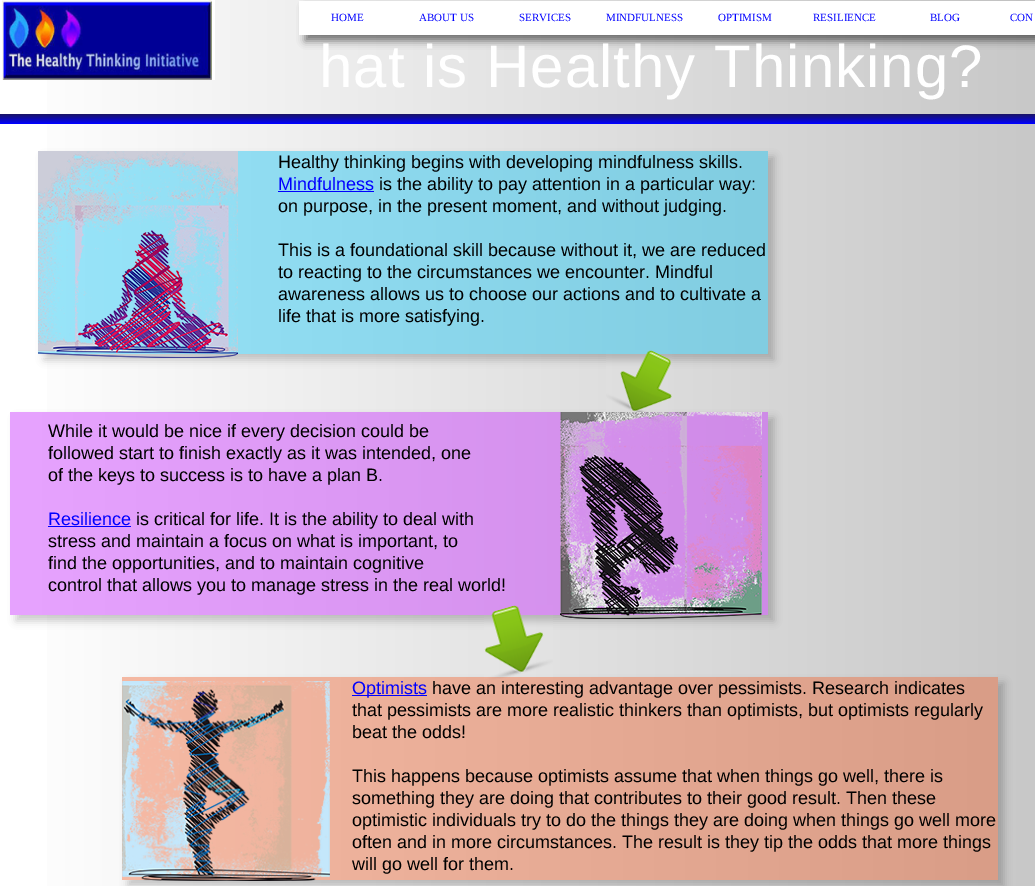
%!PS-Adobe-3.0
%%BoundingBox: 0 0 1035 886
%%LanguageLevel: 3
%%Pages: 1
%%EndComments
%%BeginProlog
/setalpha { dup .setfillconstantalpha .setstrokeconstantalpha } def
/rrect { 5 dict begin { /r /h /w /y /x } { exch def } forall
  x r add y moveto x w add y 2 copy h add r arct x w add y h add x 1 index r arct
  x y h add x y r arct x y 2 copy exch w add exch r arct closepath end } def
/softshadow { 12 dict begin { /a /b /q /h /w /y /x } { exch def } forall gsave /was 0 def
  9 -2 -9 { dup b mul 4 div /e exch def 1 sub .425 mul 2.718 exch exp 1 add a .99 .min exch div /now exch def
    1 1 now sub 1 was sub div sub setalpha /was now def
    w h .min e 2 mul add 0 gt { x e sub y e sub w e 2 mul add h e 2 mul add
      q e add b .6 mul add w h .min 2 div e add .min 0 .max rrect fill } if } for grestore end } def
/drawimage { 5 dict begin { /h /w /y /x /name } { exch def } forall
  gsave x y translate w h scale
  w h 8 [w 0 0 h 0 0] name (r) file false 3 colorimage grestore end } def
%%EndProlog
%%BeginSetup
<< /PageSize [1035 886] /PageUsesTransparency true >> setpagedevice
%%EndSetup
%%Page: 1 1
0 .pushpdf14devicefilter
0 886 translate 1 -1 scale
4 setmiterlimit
1 setgray
0 0 1035 886 rectfill
gsave newpath 47 0 moveto 1035 0 lineto 1035 886 lineto 47 886 lineto closepath clip newpath
<< /ShadingType 2 /ColorSpace /DeviceRGB /Coords [0 818 1035 818] /Extend [true true] /Function << /FunctionType 2 /Domain [0 1] /C0 [1 1 1] /C1 [0.784 0.784 0.784] /N 1 >> >> shfill grestore
gsave newpath 38 151 moveto 768 151 lineto 768 354 lineto 38 354 lineto closepath clip newpath
<< /ShadingType 2 /ColorSpace /DeviceRGB /Coords [0 818 1035 818] /Extend [true true] /Function << /FunctionType 2 /Domain [0 1] /C0 [0.6 0.898 0.98] /C1 [0.471 0.769 0.851] /N 1 >> >> shfill grestore
gsave newpath 10 412 moveto 768 412 lineto 768 615 lineto 10 615 lineto closepath clip newpath
<< /ShadingType 2 /ColorSpace /DeviceRGB /Coords [0 818 1035 818] /Extend [true true] /Function << /FunctionType 2 /Domain [0 1] /C0 [0.906 0.639 1] /C1 [0.776 0.51 0.871] /N 1 >> >> shfill grestore
gsave newpath 122 677 moveto 998 677 lineto 998 880 lineto 122 880 lineto closepath clip newpath
<< /ShadingType 2 /ColorSpace /DeviceRGB /Coords [0 818 1035 818] /Extend [true true] /Function << /FunctionType 2 /Domain [0 1] /C0 [0.976 0.741 0.655] /C1 [0.847 0.612 0.525] /N 1 >> >> shfill grestore
(images/1.raw) 2 0 210 80 drawimage
212 0 3 80 rectfill
0 setgray
305 7 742 34 0 4 0.5 softshadow
1 setgray
299 1 736 34 rectfill
gsave newpath 0 114 moveto 1035 114 lineto 1035 124 lineto 0 124 lineto closepath clip newpath
<< /ShadingType 2 /ColorSpace /DeviceRGB /Coords [518 114 518 124] /Extend [true true] /Function << /FunctionType 2 /Domain [0 1] /C0 [0.106 0.078 0.392] /C1 [0 0 1] /N 1 >> >> shfill grestore
gsave
newpath 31 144 moveto 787 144 lineto 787 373 lineto 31 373 lineto closepath 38 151 moveto 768 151 lineto 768 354 lineto 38 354 lineto closepath eoclip newpath
0 setgray
44 157 730 203 0 4 0.2 softshadow
grestore
(images/2.raw) 38 151 200 207 drawimage
0 0 1 setrgbcolor
278 191 96 1 rectfill
gsave
newpath 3 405 moveto 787 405 lineto 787 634 lineto 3 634 lineto closepath 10 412 moveto 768 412 lineto 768 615 lineto 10 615 lineto closepath eoclip newpath
0 setgray
16 418 758 203 0 4 0.2 softshadow
grestore
(images/3.raw) 606 350 66 73 drawimage
48 526 83 1 rectfill
(images/4.raw) 560 412 202 207 drawimage
gsave
newpath 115 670 moveto 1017 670 lineto 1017 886 lineto 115 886 lineto closepath 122 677 moveto 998 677 lineto 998 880 lineto 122 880 lineto closepath eoclip newpath
0 setgray
128 683 876 203 0 4 0.2 softshadow
grestore
(images/5.raw) 484 605 69 75 drawimage
(images/6.raw) 122 681 208 200 drawimage
352 695 75 1 rectfill
/LiberationSerif-Regular [11 0 0 -11 0 0] selectfont
331 21 moveto (HOME) show
419 21 moveto (ABOUT US) show
519 21 moveto (SERVICES) show
606 21 moveto (MINDFULNESS) show
718 21 moveto (OPTIMISM) show
813 21 moveto (RESILIENCE) show
930 21 moveto (BLOG) show
1010 21 moveto (CON) show
/LiberationSans-Regular [60 0 0 -60 0 0] selectfont
1 setgray
319 87 moveto 1 0 (hat is Healthy Thinking?) ashow
/LiberationSans-Regular [18 0 0 -18 0 0] selectfont
0 setgray
278 168 moveto (Healthy thinking begins with developing mindfulness skills.) show
0 0 1 setrgbcolor
278 190 moveto (Mindfulness) show
0 setgray
379 190 moveto (is the ability to pay attention in a particular way:) show
278 212 moveto (on purpose, in the present moment, and without judging.) show
278 256 moveto (This is a foundational skill because without it, we are reduced) show
278 278 moveto (to reacting to the circumstances we encounter. Mindful) show
278 300 moveto (awareness allows us to choose our actions and to cultivate a) show
278 322 moveto (life that is more satisfying.) show
48 437 moveto (While it would be nice if every decision could be) show
48 459 moveto (followed start to finish exactly as it was intended, one) show
48 481 moveto (of the keys to success is to have a plan B.) show
0 0 1 setrgbcolor
48 525 moveto (Resilience) show
0 setgray
136 525 moveto (is critical for life. It is the ability to deal with) show
48 547 moveto (stress and maintain a focus on what is important, to) show
48 569 moveto (find the opportunities, and to maintain cognitive) show
48 591 moveto (control that allows you to manage stress in the real world!) show
0 0 1 setrgbcolor
352 694 moveto (Optimists) show
0 setgray
432 694 moveto (have an interesting advantage over pessimists. Research indicates) show
352 716 moveto (that pessimists are more realistic thinkers than optimists, but optimists regularly) show
352 738 moveto (beat the odds!) show
352 782 moveto (This happens because optimists assume that when things go well, there is) show
352 804 moveto (something they are doing that contributes to their good result. Then these) show
352 826 moveto (optimistic individuals try to do the things they are doing when things go well more) show
352 848 moveto (often and in more circumstances. The result is they tip the odds that more things) show
352 870 moveto (will go well for them.) show
.poppdf14devicefilter showpage
%%EOF
